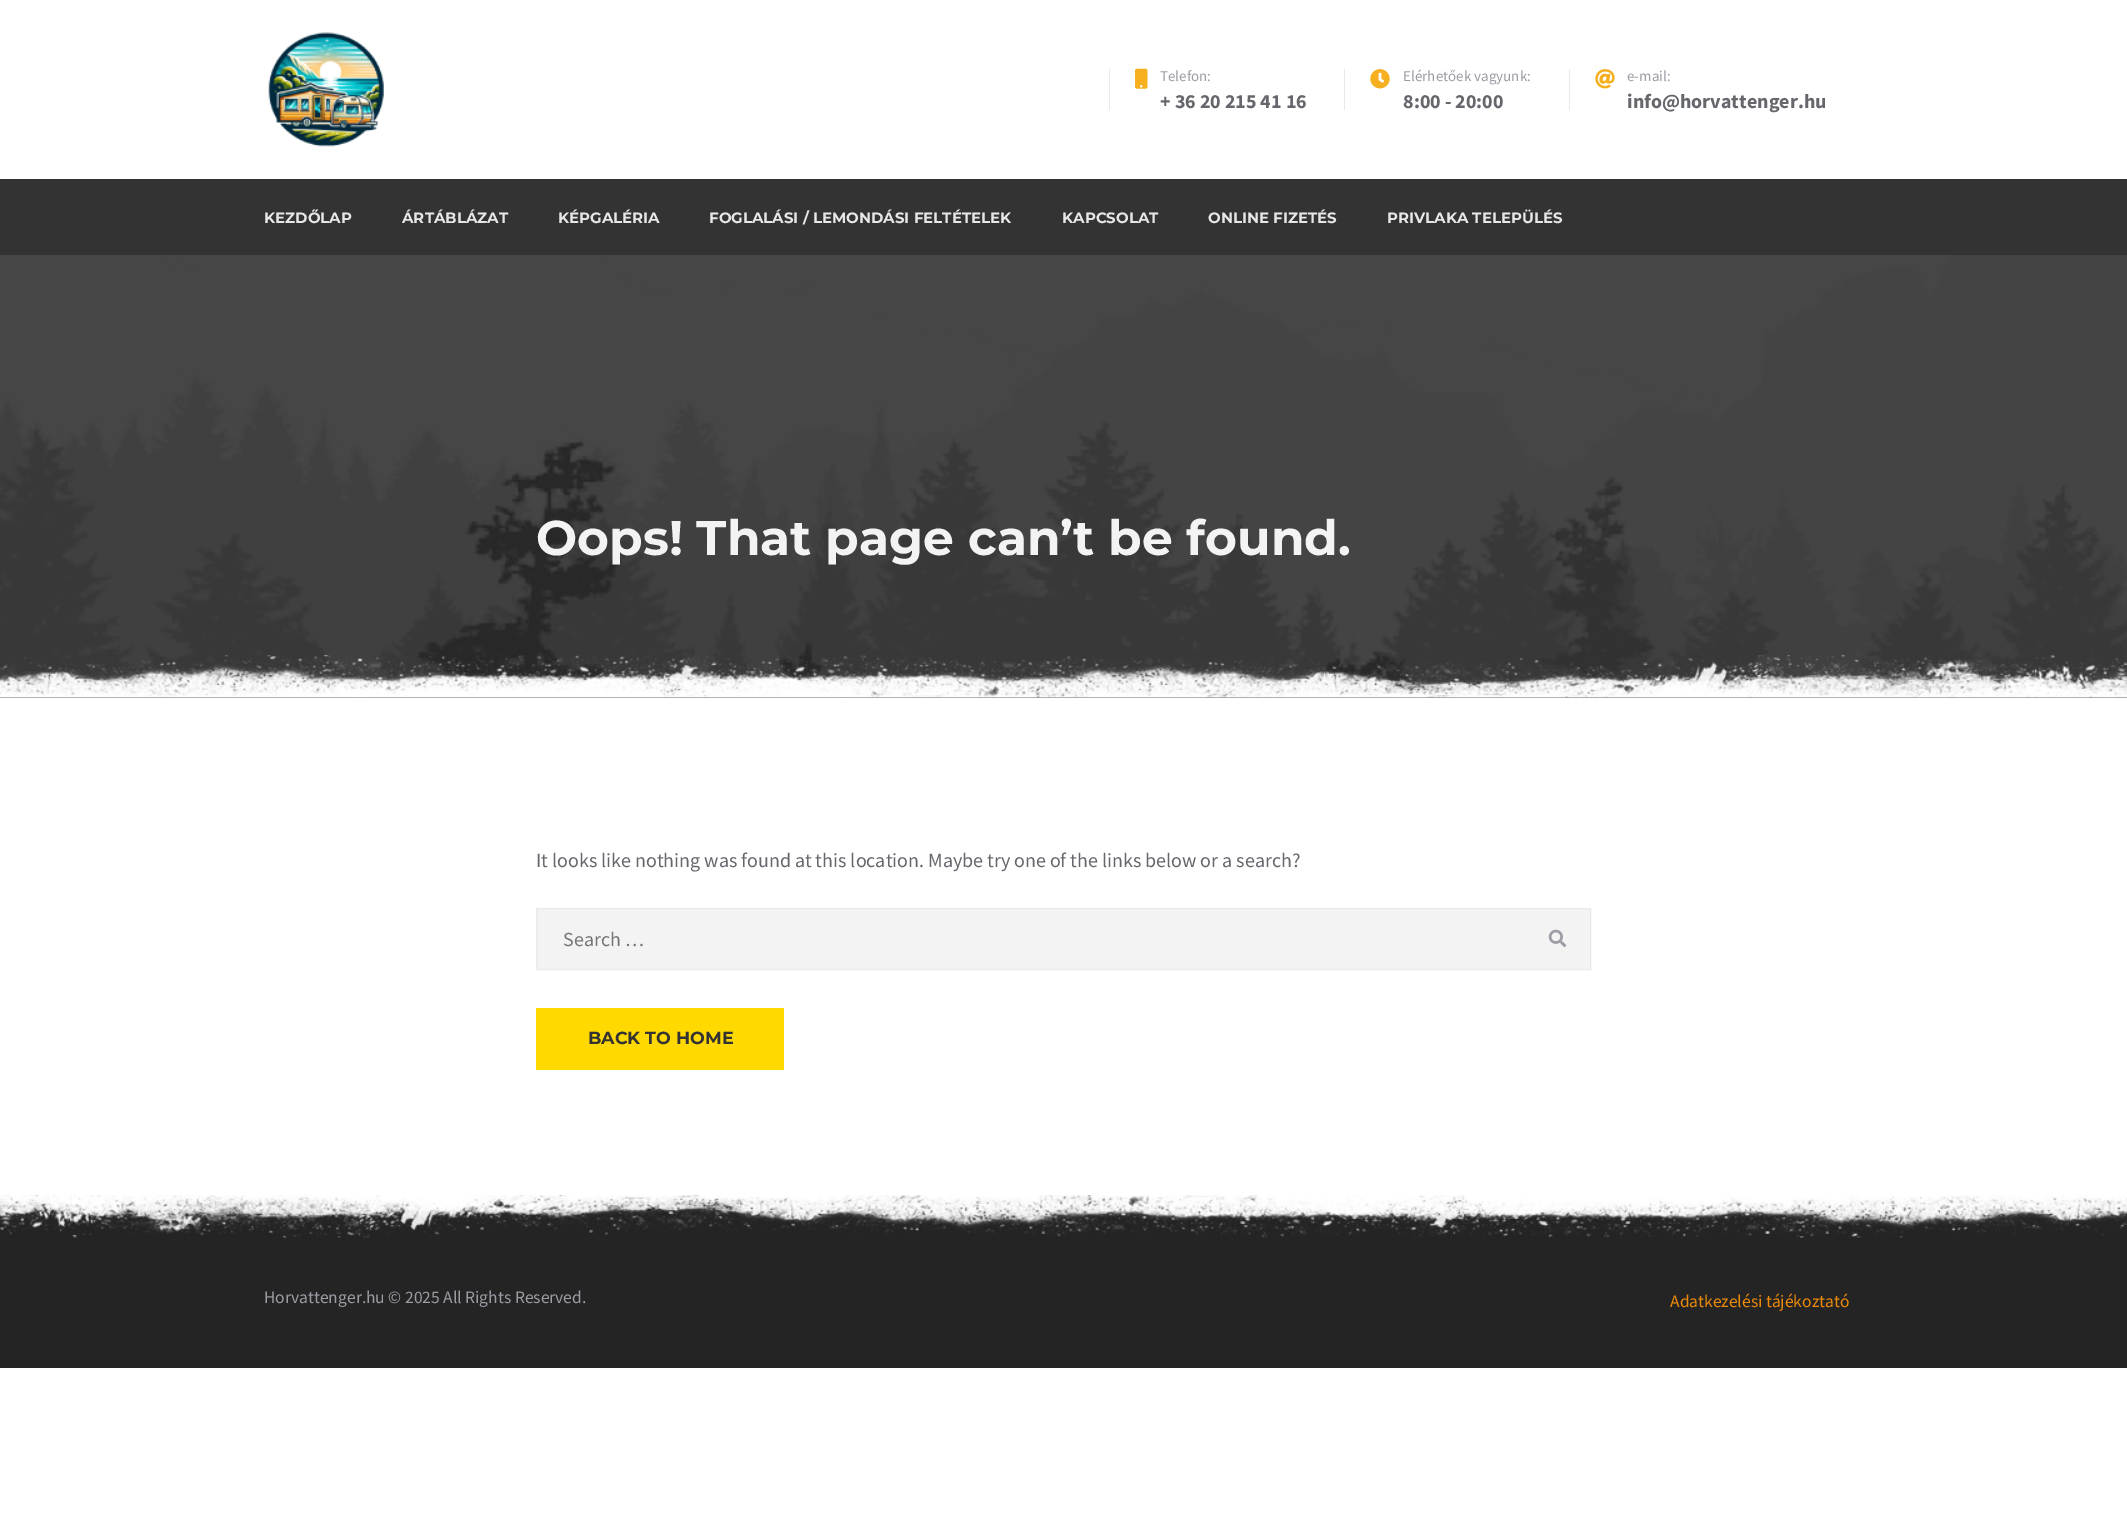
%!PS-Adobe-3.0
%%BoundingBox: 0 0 2127 1535
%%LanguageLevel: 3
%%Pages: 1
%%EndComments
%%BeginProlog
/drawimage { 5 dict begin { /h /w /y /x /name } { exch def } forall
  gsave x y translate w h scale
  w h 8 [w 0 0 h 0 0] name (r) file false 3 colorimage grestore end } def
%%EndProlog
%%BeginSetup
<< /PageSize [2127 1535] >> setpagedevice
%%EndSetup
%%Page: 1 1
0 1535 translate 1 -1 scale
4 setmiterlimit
1 setgray
0 0 2127 1535 rectfill
0.58 setgray
0 697 2127 1 rectfill
(images/1.raw) 268 32 116 115 drawimage
0.914 setgray
1109 69 1 41 rectfill
(images/2.raw) 1135 68 13 21 drawimage
1344 69 1 41 rectfill
(images/3.raw) 1370 69 20 20 drawimage
1569 69 1 41 rectfill
(images/4.raw) 1595 69 20 20 drawimage
0.2 setgray
0 179 2127 76 rectfill
(images/5.raw) 0 255 2127 443 drawimage
(images/6.raw) 0 655 2127 43 drawimage
0.953 setgray
newpath 536.5 908.5 moveto 1590.5 908.5 lineto 1590.5 969.5 lineto 536.5 969.5 lineto closepath gsave fill grestore
0.914 setgray
stroke
(images/7.raw) 1548 929 19 19 drawimage
1 0.851 0 setrgbcolor
536 1008 248 62 rectfill
0.141 setgray
0 1195 2127 173 rectfill
(images/8.raw) 0 1195 2127 43 drawimage
/SourceSansPro-Regular [15 0 0 -15 0 0] selectfont
0.608 0.612 0.643 setrgbcolor
1160 81 moveto (Telefon:) show
/SourceSansPro-Bold [20 0 0 -20 0 0] selectfont
0.4 0.404 0.427 setrgbcolor
1160 108 moveto (+ 36 20 215 41 16) show
/SourceSansPro-Regular [15 0 0 -15 0 0] selectfont
0.608 0.612 0.643 setrgbcolor
1403 81 moveto (Elérhetőek vagyunk:) show
/SourceSansPro-Bold [20 0 0 -20 0 0] selectfont
0.4 0.404 0.427 setrgbcolor
1403 108 moveto (8:00 - 20:00) show
/SourceSansPro-Regular [15 0 0 -15 0 0] selectfont
0.608 0.612 0.643 setrgbcolor
1627 81 moveto (e-mail:) show
/SourceSansPro-Bold [20 0 0 -20 0 0] selectfont
0.4 0.404 0.427 setrgbcolor
1627 108 moveto (info@horvattenger.hu) show
/Montserrat-Bold [15 0 0 -15 0 0] selectfont
0.906 setgray
264 223 moveto (KEZDŐLAP) show
402 223 moveto (ÁRTÁBLÁZAT) show
558 223 moveto (KÉPGALÉRIA) show
709 223 moveto (FOGLALÁSI / LEMONDÁSI FELTÉTELEK) show
1062 223 moveto (KAPCSOLAT) show
1208 223 moveto (ONLINE FIZETÉS) show
1387 223 moveto (PRIVLAKA TELEPÜLÉS) show
/Montserrat-Bold [48.75 0 0 -48.75 0 0] selectfont
0.953 setgray
536 555 moveto (Oops! That page can’t be found.) show
/SourceSansPro-Regular [20 0 0 -20 0 0] selectfont
0.4 0.404 0.427 setrgbcolor
536 867 moveto (It looks like nothing was found at this location. Maybe try one of the links below or a search?) show
0.459 setgray
563 946 moveto (Search …) show
/Montserrat-Bold [17.5 0 0 -17.5 0 0] selectfont
0.2 setgray
588 1044 moveto (BACK TO HOME) show
/SourceSansPro-Regular [17.5 0 0 -17.5 0 0] selectfont
0.608 0.612 0.643 setrgbcolor
264 1303 moveto (Horvattenger.hu © 2025 All Rights Reserved.) show
0.929 0.541 0.039 setrgbcolor
1670 1307 moveto (Adatkezelési tájékoztató) show
showpage
%%EOF
